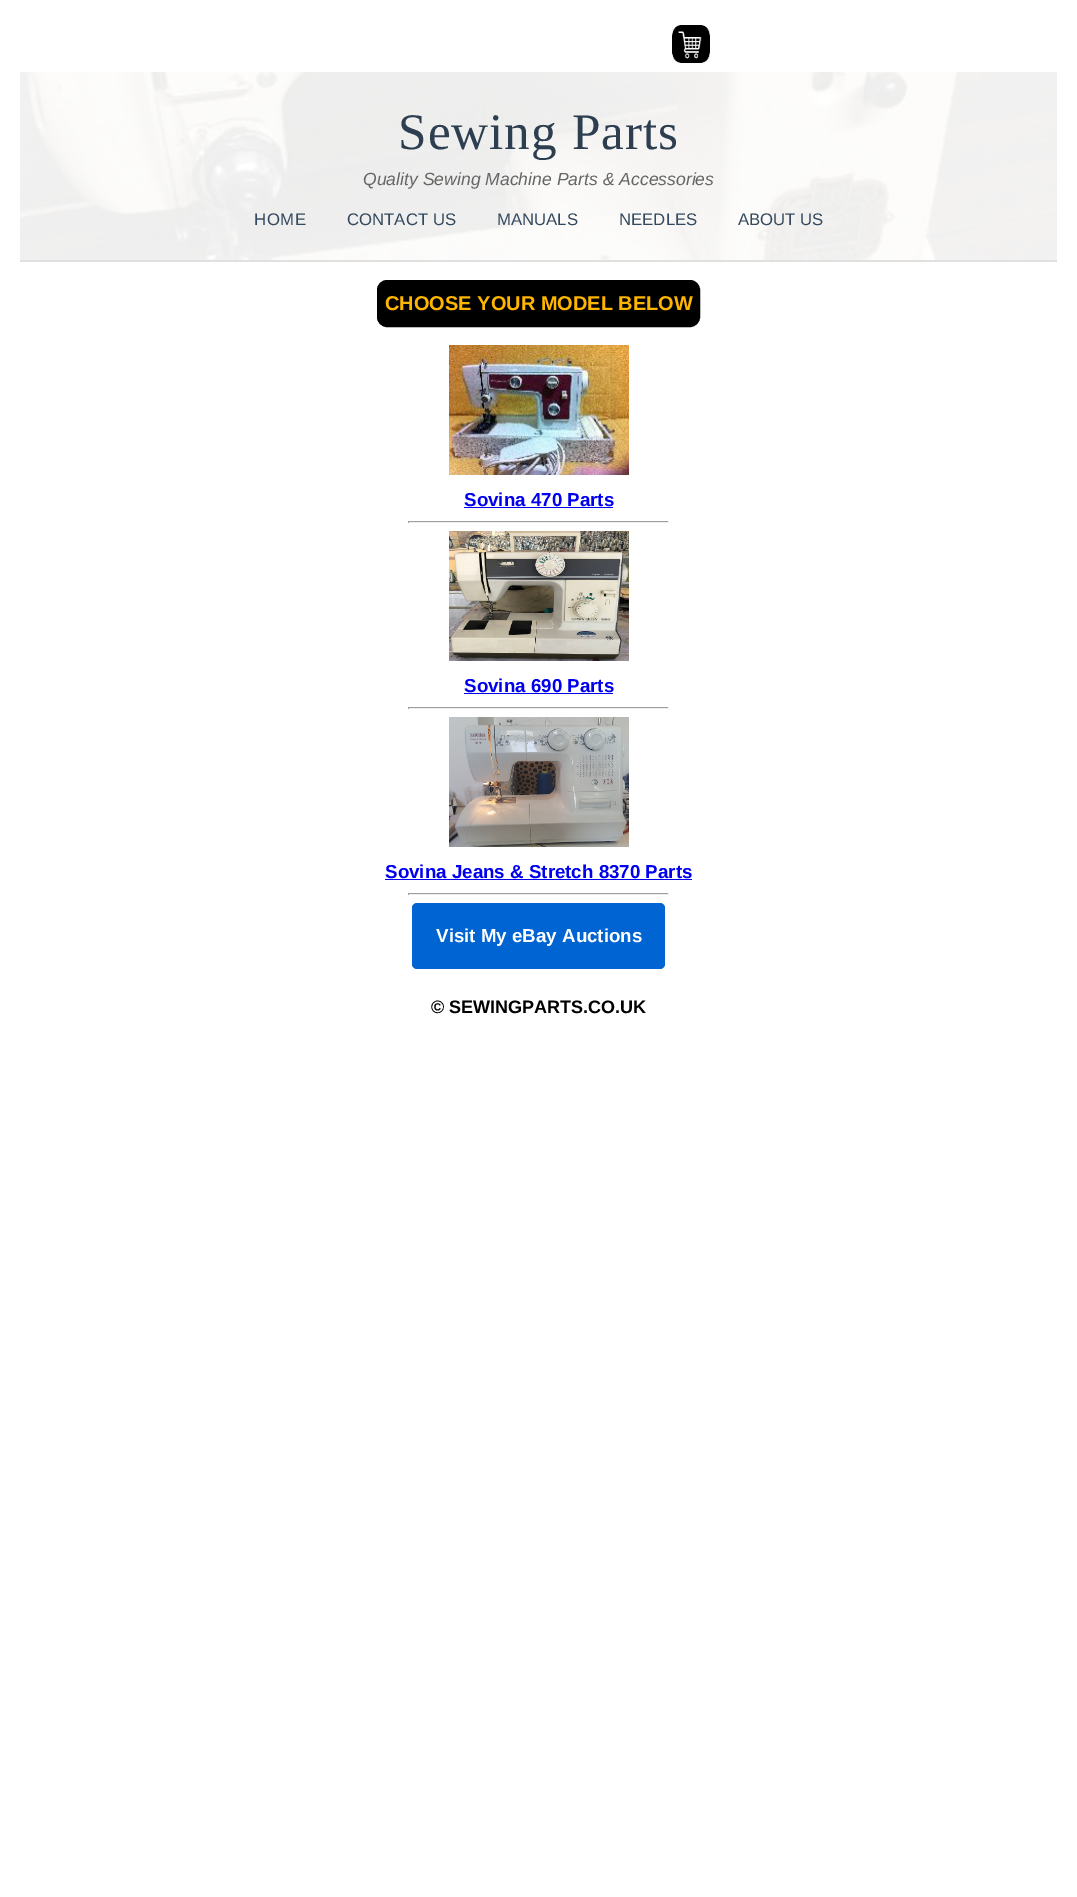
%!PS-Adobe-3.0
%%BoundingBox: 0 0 1077 1897
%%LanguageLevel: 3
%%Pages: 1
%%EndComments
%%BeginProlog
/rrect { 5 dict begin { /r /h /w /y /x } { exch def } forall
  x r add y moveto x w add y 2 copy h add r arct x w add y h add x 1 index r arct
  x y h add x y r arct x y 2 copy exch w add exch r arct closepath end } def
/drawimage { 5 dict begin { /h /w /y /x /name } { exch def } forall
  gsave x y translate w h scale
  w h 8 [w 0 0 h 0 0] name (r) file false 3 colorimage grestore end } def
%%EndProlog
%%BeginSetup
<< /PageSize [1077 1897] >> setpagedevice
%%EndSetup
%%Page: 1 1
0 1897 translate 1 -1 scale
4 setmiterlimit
1 setgray
0 0 1077 1897 rectfill
(images/1.raw) 672 21 38 42 drawimage
0.878 setgray
20 260 1037 2 rectfill
(images/2.raw) 20 72 1037 188 drawimage
0 setgray
378 281 321 45 9 rrect gsave fill grestore
2 setlinewidth
stroke
(images/3.raw) 449 345 180 130 drawimage
0 0 0.933 setrgbcolor
464 507 149 1 rectfill
0.624 setgray
408 521 261 1 rectfill
0.933 setgray
668 521 1 2 rectfill
408 522 261 1 rectfill
0.624 setgray
408 521 1 2 rectfill
(images/4.raw) 449 531 180 130 drawimage
0 0 0.933 setrgbcolor
464 693 149 1 rectfill
0.624 setgray
408 707 261 1 rectfill
0.933 setgray
668 707 1 2 rectfill
408 708 261 1 rectfill
0.624 setgray
408 707 1 2 rectfill
(images/5.raw) 449 717 180 130 drawimage
0 0 0.933 setrgbcolor
385 879 307 1 rectfill
0.624 setgray
408 893 261 1 rectfill
0.933 setgray
668 893 1 2 rectfill
408 894 261 1 rectfill
0.624 setgray
408 893 1 2 rectfill
0 0.392 0.824 setrgbcolor
412 903 253 66 5 rrect fill
/LiberationSerif-Regular [51.25 0 0 -51.25 0 0] selectfont
0.173 0.243 0.314 setrgbcolor
398 149 moveto 1 0 (Sewing Parts) ashow
/LiberationSans-Italic [17.6 0 0 -17.6 0 0] selectfont
0.4 setgray
363 185 moveto (Quality Sewing Machine Parts & Accessories) show
/LiberationSans-Regular [16.75 0 0 -16.75 0 0] selectfont
0.204 0.286 0.369 setrgbcolor
254 225 moveto 0.5 0 (HOME) ashow
347 225 moveto (CONTACT US) show
497 225 moveto (MANUALS) show
619 225 moveto (NEEDLES) show
738 225 moveto (ABOUT US) show
/LiberationSans-Bold [20 0 0 -20 0 0] selectfont
1 0.714 0 setrgbcolor
385 310 moveto (CHOOSE YOUR MODEL BELOW) show
/LiberationSans-Bold [18.75 0 0 -18.75 0 0] selectfont
0 0 0.933 setrgbcolor
464 506 moveto (Sovina 470 Parts) show
464 692 moveto (Sovina 690 Parts) show
385 878 moveto (Sovina Jeans & Stretch 8370 Parts) show
1 setgray
436 942 moveto (Visit My eBay Auctions) show
/LiberationSans-Bold [18 0 0 -18 0 0] selectfont
0 setgray
431 1013 moveto (© SEWINGPARTS.CO.UK) show
showpage
%%EOF
